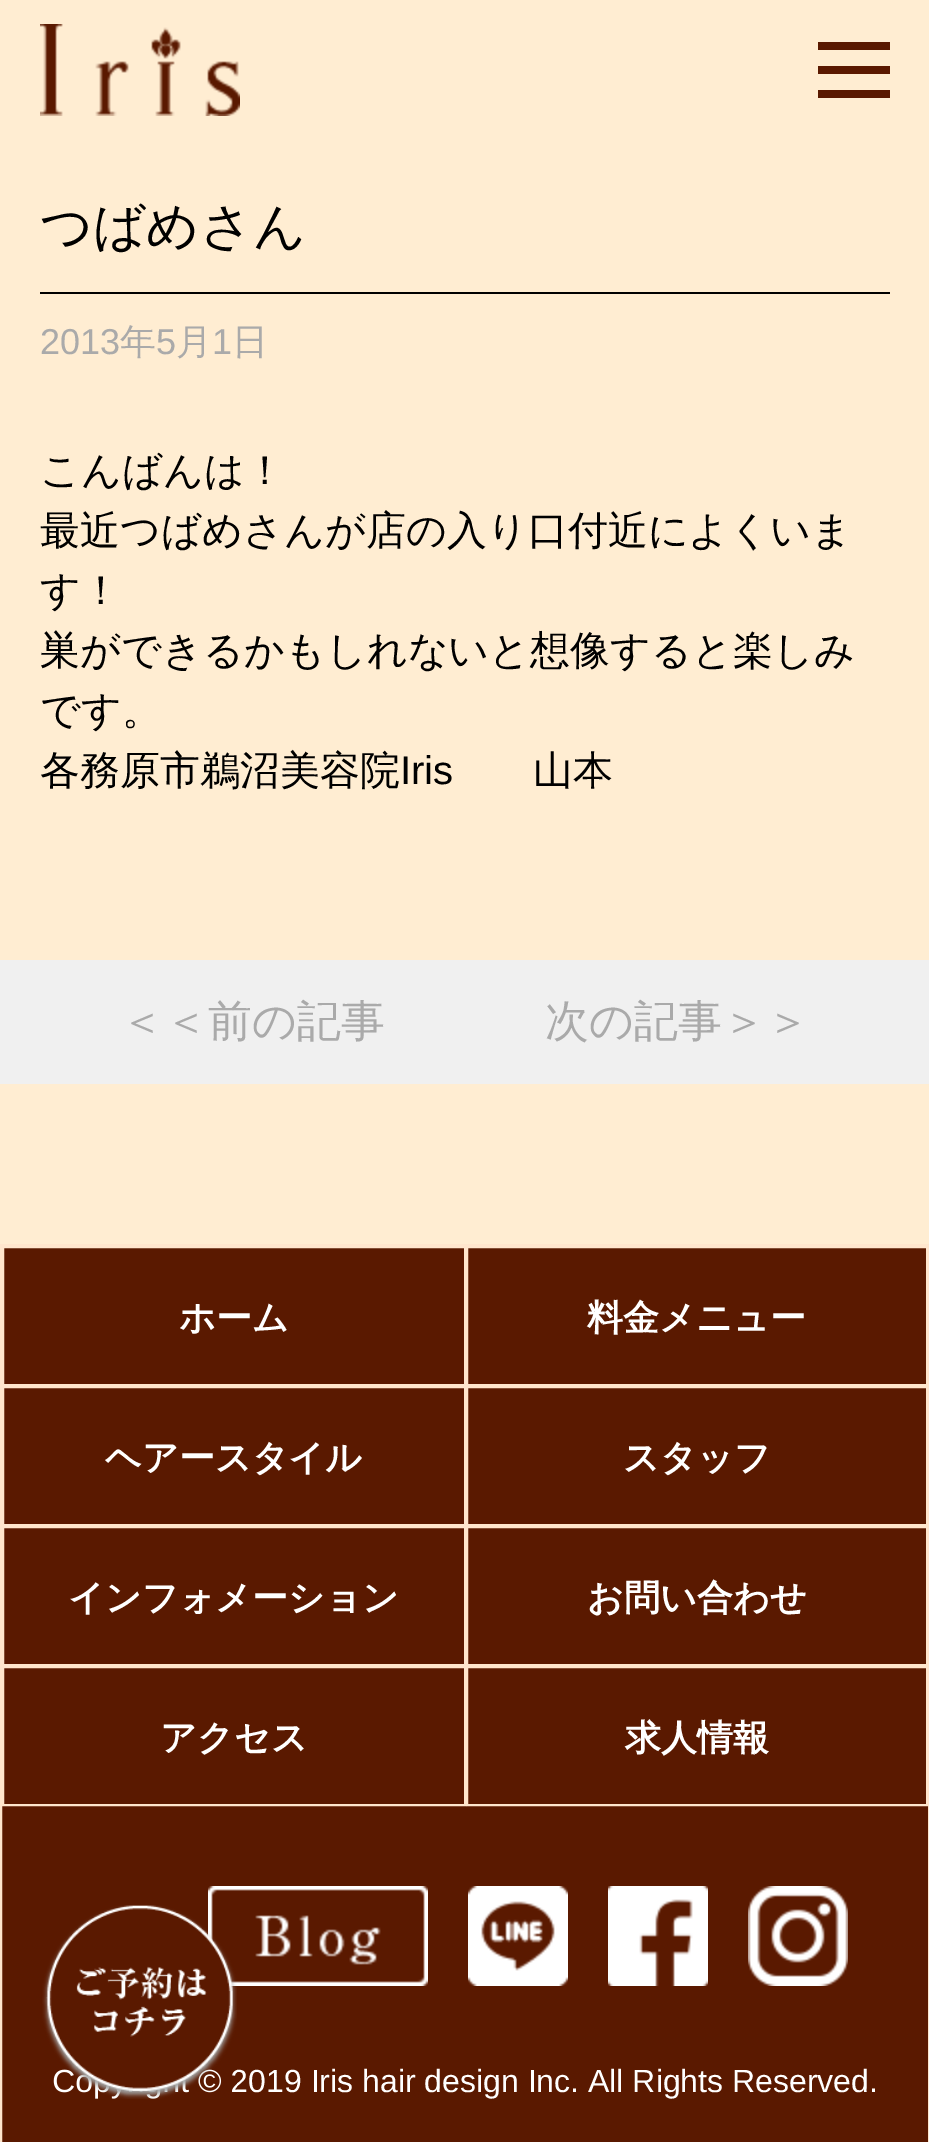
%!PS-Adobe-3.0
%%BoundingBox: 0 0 929 2142
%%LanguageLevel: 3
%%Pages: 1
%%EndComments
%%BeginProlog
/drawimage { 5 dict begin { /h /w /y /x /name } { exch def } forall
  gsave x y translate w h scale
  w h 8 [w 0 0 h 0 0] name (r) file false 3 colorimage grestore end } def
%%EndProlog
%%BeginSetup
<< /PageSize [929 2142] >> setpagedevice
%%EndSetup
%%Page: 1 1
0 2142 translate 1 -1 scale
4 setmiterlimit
1 0.929 0.824 setrgbcolor
0 0 929 2142 rectfill
(images/1.raw) 40 24 200 92 drawimage
0.353 0.098 0 setrgbcolor
818 42 72 8 rectfill
818 66 72 8 rectfill
818 90 72 8 rectfill
0 setgray
40 292 850 2 rectfill
0.941 setgray
0 960 929 124 rectfill
0.353 0.098 0 setrgbcolor
2 1248 926 894 rectfill
1 0.902 0.804 setrgbcolor
2 setlinewidth
1 1245 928 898 rectstroke
3 1247 462 138 rectstroke
467 1247 460 138 rectstroke
3 1387 462 138 rectstroke
467 1387 460 138 rectstroke
3 1527 462 138 rectstroke
467 1527 460 138 rectstroke
3 1667 462 138 rectstroke
467 1667 460 138 rectstroke
(images/2.raw) 208 1886 220 100 drawimage
(images/3.raw) 468 1886 100 100 drawimage
(images/4.raw) 608 1886 100 100 drawimage
(images/5.raw) 748 1886 100 100 drawimage
/WenQuanYiZenHei-Medium [52 0 0 -52 0 0] selectfont
0 setgray
40 244 moveto (つばめさん) show
/LiberationSans-Regular [36 0 0 -36 0 0] selectfont
0.667 setgray
40 354 moveto (2013) show
/WenQuanYiZenHei-Medium [36 0 0 -36 0 0] selectfont
120 354 moveto (年) show
/LiberationSans-Regular [36 0 0 -36 0 0] selectfont
156 354 moveto (5) show
/WenQuanYiZenHei-Medium [36 0 0 -36 0 0] selectfont
176 354 moveto (月) show
/LiberationSans-Regular [36 0 0 -36 0 0] selectfont
212 354 moveto (1) show
/WenQuanYiZenHei-Medium [36 0 0 -36 0 0] selectfont
232 354 moveto (日) show
/WenQuanYiZenHei-Medium [40 0 0 -40 0 0] selectfont
0 setgray
40 484 moveto (こんばんは！) show
40 544 moveto (最近つばめさんが店の入り口付近によくいま) show
40 604 moveto (す！) show
40 664 moveto (巣ができるかもしれないと想像すると楽しみ) show
40 724 moveto (です。) show
40 784 moveto (各務原市鵜沼美容院) show
/LiberationSans-Regular [40 0 0 -40 0 0] selectfont
400 784 moveto (Iris) show
/WenQuanYiZenHei-Medium [40 0 0 -40 0 0] selectfont
533 784 moveto (山本) show
/WenQuanYiZenHei-Medium [44 0 0 -44 0 0] selectfont
0.667 setgray
120 1036 moveto (＜＜前の記事) show
545 1036 moveto (次の記事＞＞) show
/WenQuanYiZenHei-Bold [36 0 0 -36 0 0] selectfont
1 setgray
179 1330 moveto (ホーム) show
587 1330 moveto (料金メニュー) show
105 1470 moveto (ヘアースタイル) show
623 1470 moveto (スタッフ) show
68 1610 moveto (インフォメーション) show
587 1610 moveto (お問い合わせ) show
160 1750 moveto (アクセス) show
625 1750 moveto (求人情報) show
/LiberationSans-Regular [32 0 0 -32 0 0] selectfont
52 2092 moveto (C) show
198 2092 moveto (© 2019 Iris hair design Inc. All Rights Reserved.) show
(images/6.raw) 42 1905 195 194 drawimage
showpage
%%EOF
